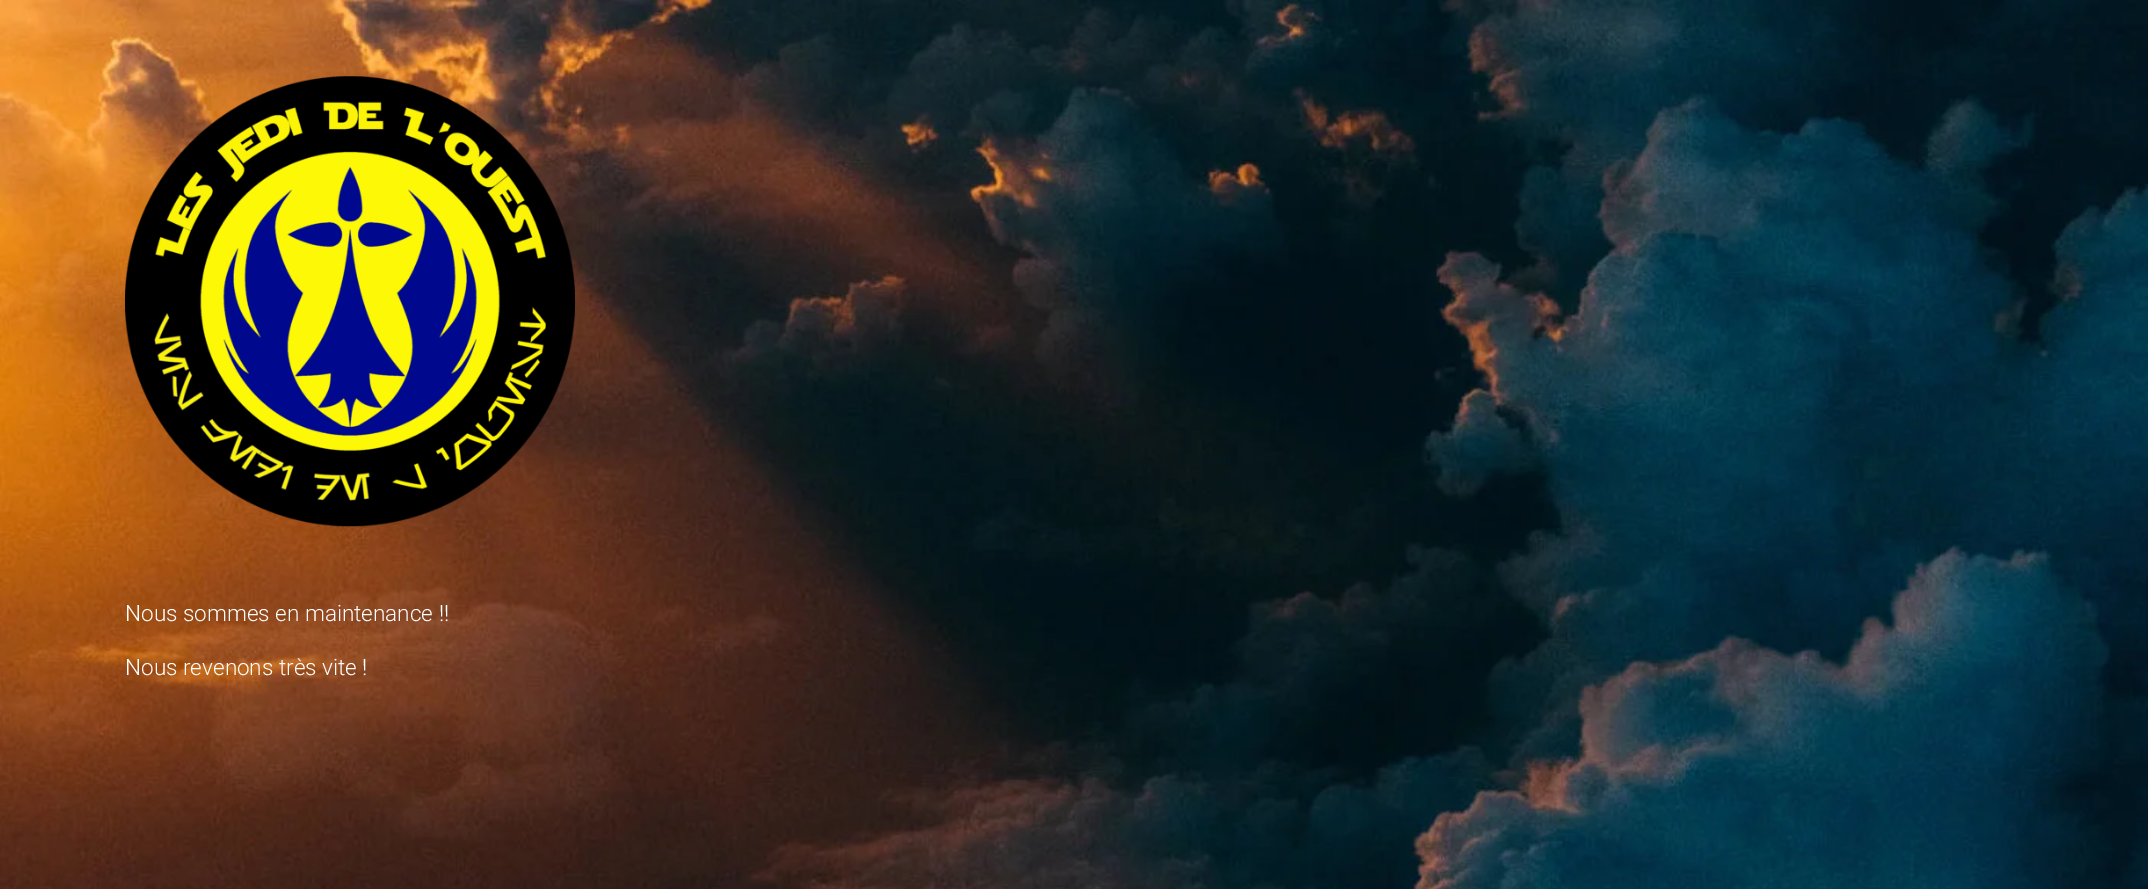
%!PS-Adobe-3.0
%%BoundingBox: 0 0 2148 889
%%LanguageLevel: 3
%%Pages: 1
%%EndComments
%%BeginProlog
/drawimage { 5 dict begin { /h /w /y /x /name } { exch def } forall
  gsave x y translate w h scale
  w h 8 [w 0 0 h 0 0] name (r) file false 3 colorimage grestore end } def
%%EndProlog
%%BeginSetup
<< /PageSize [2148 889] >> setpagedevice
%%EndSetup
%%Page: 1 1
0 889 translate 1 -1 scale
4 setmiterlimit
1 setgray
0 0 2148 889 rectfill
(images/1.raw) 0 0 2148 889 drawimage
(images/2.raw) 125 76 450 451 drawimage
/Roboto-Light [22.5 0 0 -22.5 0 0] selectfont
125 621 moveto (Nous sommes en maintenance !!) show
125 675 moveto (Nous revenons très vite !) show
showpage
%%EOF
